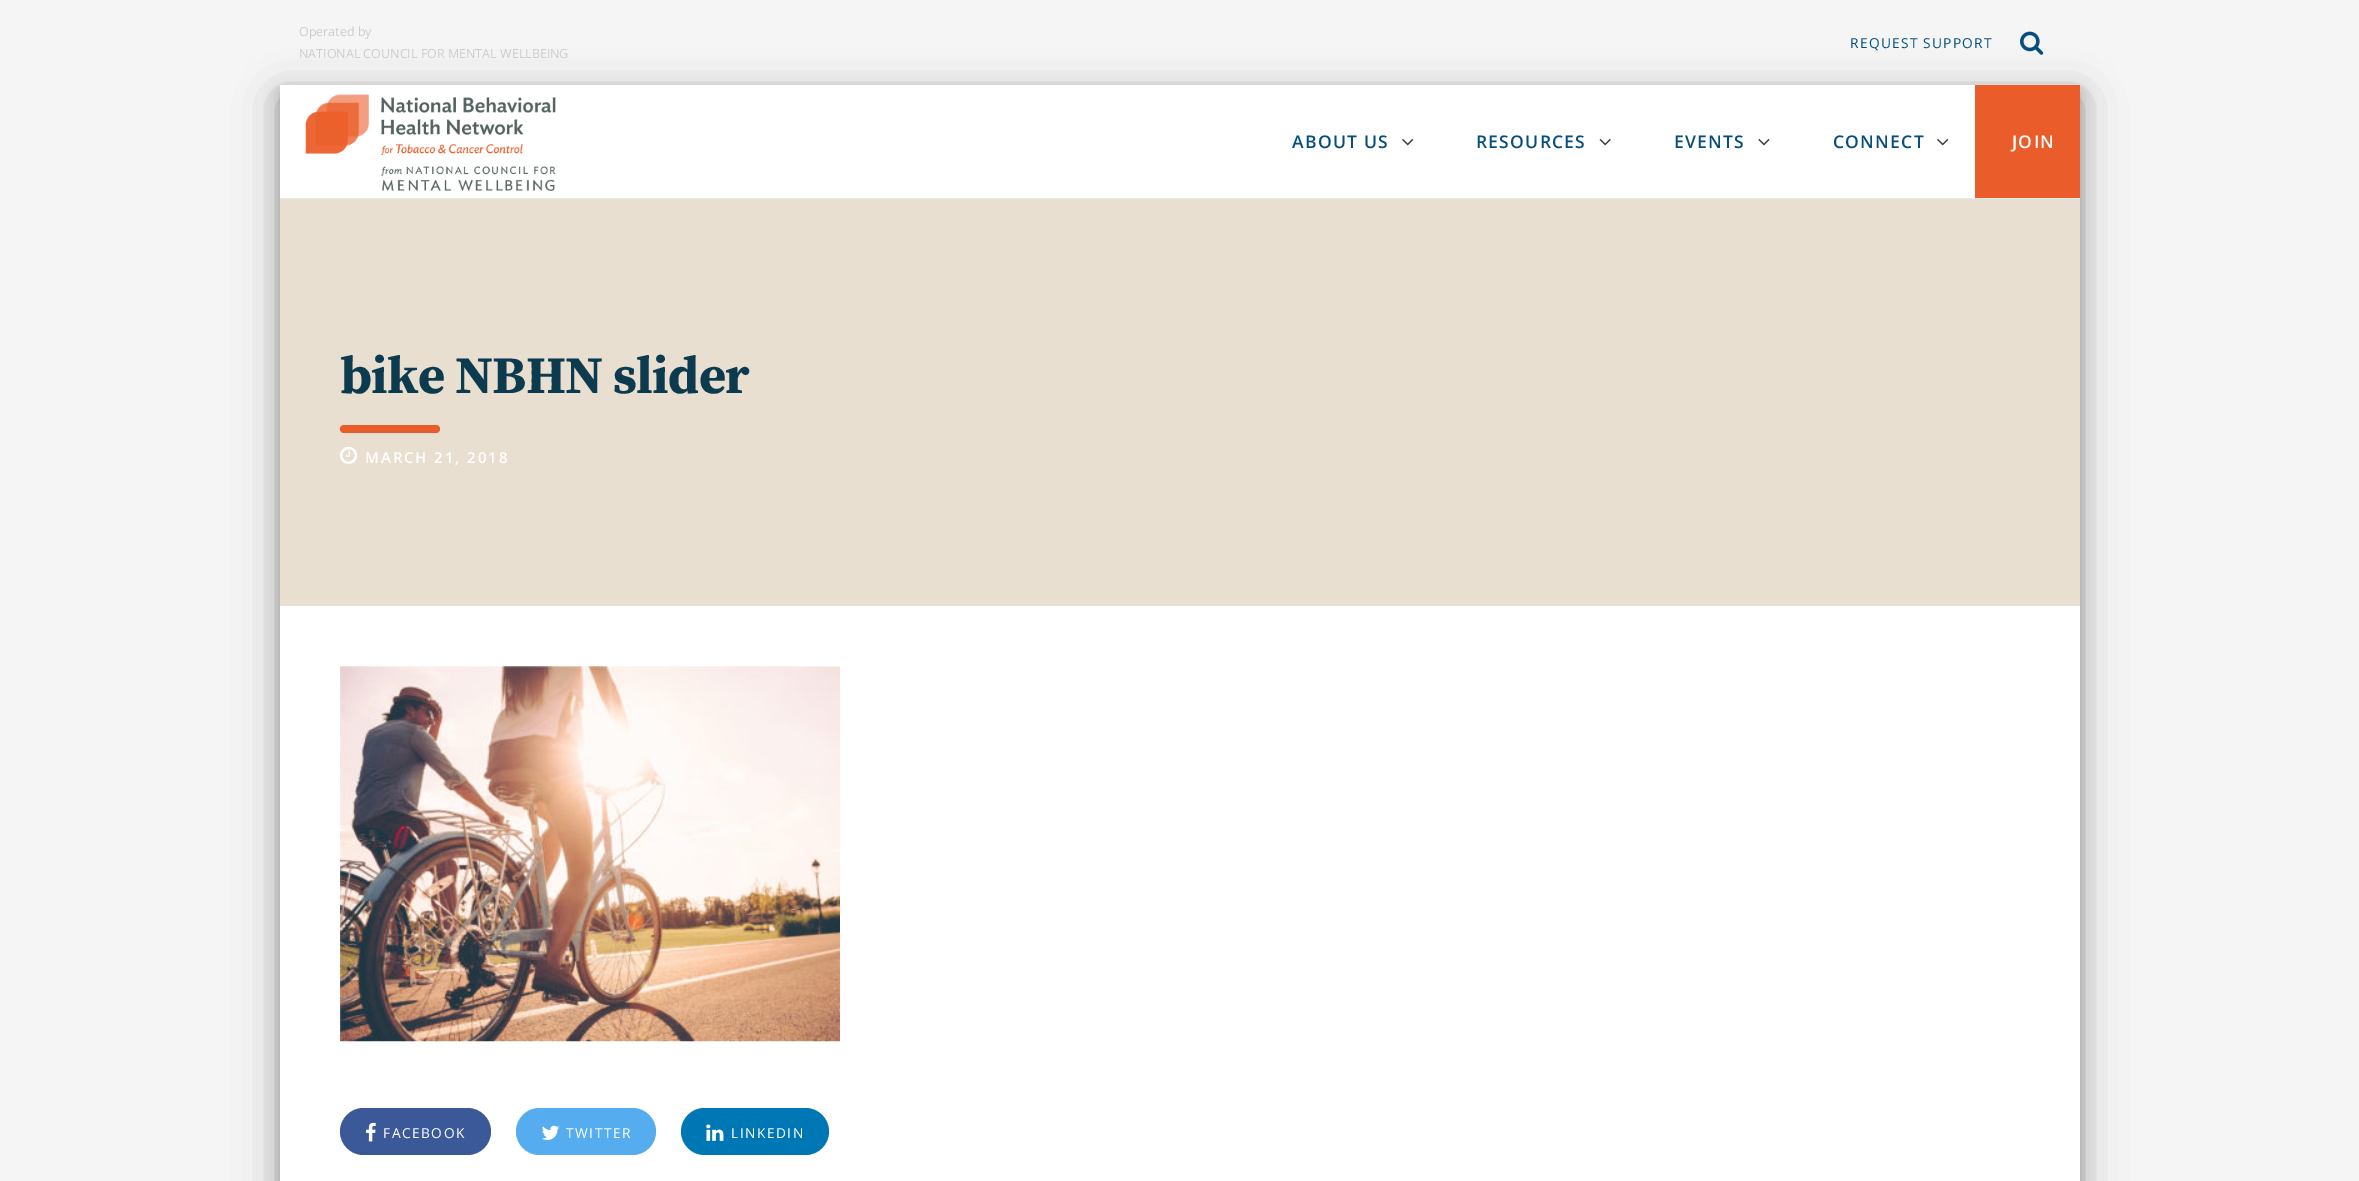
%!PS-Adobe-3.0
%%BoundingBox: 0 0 2359 1181
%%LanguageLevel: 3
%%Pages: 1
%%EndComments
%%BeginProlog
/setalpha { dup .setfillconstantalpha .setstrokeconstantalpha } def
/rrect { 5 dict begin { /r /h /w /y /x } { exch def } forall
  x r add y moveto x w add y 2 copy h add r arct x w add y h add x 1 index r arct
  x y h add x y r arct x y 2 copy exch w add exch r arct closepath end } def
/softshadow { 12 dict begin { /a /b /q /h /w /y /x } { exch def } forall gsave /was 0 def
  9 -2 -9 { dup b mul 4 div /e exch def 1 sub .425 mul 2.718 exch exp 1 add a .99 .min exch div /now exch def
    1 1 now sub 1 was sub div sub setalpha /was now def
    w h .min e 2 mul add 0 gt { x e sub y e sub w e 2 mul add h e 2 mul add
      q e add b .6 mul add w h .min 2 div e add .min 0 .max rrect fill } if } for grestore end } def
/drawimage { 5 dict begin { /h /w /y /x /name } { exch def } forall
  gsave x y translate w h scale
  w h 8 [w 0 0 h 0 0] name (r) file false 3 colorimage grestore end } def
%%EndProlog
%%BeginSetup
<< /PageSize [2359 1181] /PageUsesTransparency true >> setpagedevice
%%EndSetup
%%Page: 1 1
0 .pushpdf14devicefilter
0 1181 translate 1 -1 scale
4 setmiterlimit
0.961 setgray
0 0 2359 1181 rectfill
(images/1.raw) 2020 31 24 24 drawimage
0 setgray
280 98 1800 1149 0 22 0.3 softshadow
280 91 1800 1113 0 7.5 0.22 softshadow
1 setgray
280 606 1800 575 rectfill
280 85 1695 113 rectfill
(images/2.raw) 305 94 251 97 drawimage
(images/3.raw) 1402 138 12 8 drawimage
(images/4.raw) 1599 138 12 8 drawimage
(images/5.raw) 1758 138 12 8 drawimage
(images/3.raw) 1937 138 12 8 drawimage
0.918 0.365 0.165 setrgbcolor
1975 85 105 113 rectfill
0.91 0.875 0.816 setrgbcolor
280 199 1800 407 rectfill
0.914 setgray
280 198 1800 1 rectfill
0.918 0.365 0.165 setrgbcolor
340 425 100 8 4 rrect fill
(images/6.raw) 340 446 18 18 drawimage
(images/7.raw) 340 666 500 376 drawimage
0.231 0.349 0.596 setrgbcolor
340 1108 151 47 23.5 rrect fill
(images/8.raw) 366 1122 10 20 drawimage
0.333 0.675 0.933 setrgbcolor
516 1108 140 47 23.5 rrect fill
(images/9.raw) 542 1125 18 15 drawimage
0 0.467 0.71 setrgbcolor
681 1108 148 47 23.5 rrect fill
(images/10.raw) 706 1124 18 17 drawimage
/OpenSans-Regular [12.5 0 0 -12.5 0 0] selectfont
0.8 setgray
299 36 moveto (Operated by) show
299 58 moveto (NATIONAL COUNCIL FOR MENTAL WELLBEING) show
/OpenSans-Regular [13.75 0 0 -13.75 0 0] selectfont
0.02 0.306 0.498 setrgbcolor
1850 48 moveto 1.25 0 (REQUEST SUPPORT) ashow
/OpenSans-SemiBold [17.5 0 0 -17.5 0 0] selectfont
1292 148 moveto 1.25 0 (ABOUT US) ashow
1476 148 moveto 1.25 0 (RESOURCES) ashow
1674 148 moveto 1.25 0 (EVENTS) ashow
1833 148 moveto 1.25 0 (CONNECT) ashow
1 setgray
2012 148 moveto 1.25 0 (JOIN) ashow
/SourceSerifPro-Bold [52.5 0 0 -52.5 0 0] selectfont
0.047 0.227 0.306 setrgbcolor
340 393 moveto -0.75 0 (bike NBHN slider) ashow
/OpenSans-SemiBold [15 0 0 -15 0 0] selectfont
1 setgray
365 463 moveto 1.9 0 (MARCH 21, 2018) ashow
/OpenSans-Regular [13.75 0 0 -13.75 0 0] selectfont
383 1138 moveto 1.5 0 (FACEBOOK) ashow
566 1138 moveto 1.5 0 (TWITTER) ashow
731 1138 moveto 1.5 0 (LINKEDIN) ashow
.poppdf14devicefilter showpage
%%EOF
